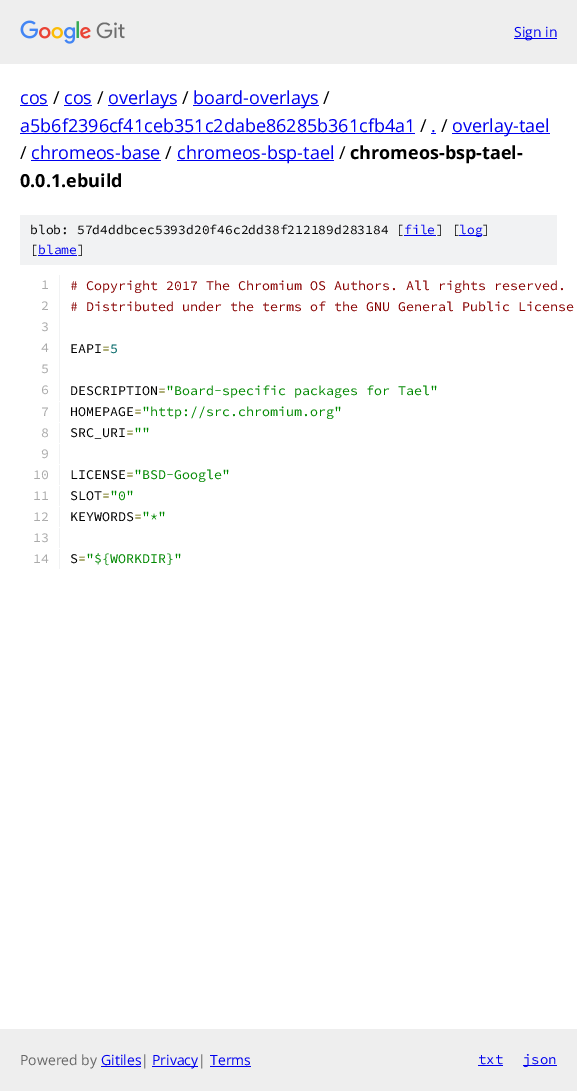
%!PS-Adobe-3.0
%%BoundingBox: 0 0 577 1091
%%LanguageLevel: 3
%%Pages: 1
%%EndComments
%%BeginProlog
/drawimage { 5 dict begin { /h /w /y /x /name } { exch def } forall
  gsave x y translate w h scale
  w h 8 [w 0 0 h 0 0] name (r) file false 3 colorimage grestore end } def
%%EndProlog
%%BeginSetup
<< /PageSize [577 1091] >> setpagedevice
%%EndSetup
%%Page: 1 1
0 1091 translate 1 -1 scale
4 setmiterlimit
1 setgray
0 0 577 1091 rectfill
0.933 setgray
0 0 577 64 rectfill
(images/1.raw) 20 20 105 24 drawimage
0 0 0.933 setrgbcolor
514 38 43 1 rectfill
20 105 28 1 rectfill
64 105 28 1 rectfill
108 105 69 1 rectfill
193 105 126 1 rectfill
20 133 395 1 rectfill
431 133 5 1 rectfill
452 133 98 1 rectfill
31 160 130 1 rectfill
177 160 157 1 rectfill
0.945 0.949 0.953 setrgbcolor
20 215 537 50 rectfill
0 0 0.933 setrgbcolor
404 235 32 1 rectfill
459 235 23 1 rectfill
38 255 39 1 rectfill
0.945 0.949 0.953 setrgbcolor
59 275 1 126 rectfill
59 402 1 20 rectfill
59 423 1 20 rectfill
59 444 1 20 rectfill
59 465 1 20 rectfill
59 486 1 20 rectfill
59 507 1 20 rectfill
59 528 1 20 rectfill
59 549 1 20 rectfill
0.933 setgray
0 1029 577 62 rectfill
0 0 0.933 setrgbcolor
101 1066 40 1 rectfill
152 1066 46 1 rectfill
210 1066 41 1 rectfill
478 1065 25 1 rectfill
523 1065 34 1 rectfill
/OpenSans-Regular [14 0 0 -14 0 0] selectfont
514 37 moveto (Sign in) show
/OpenSans-Regular [18 0 0 -18 0 0] selectfont
20 104 moveto (cos) show
0 setgray
53 104 moveto (/) show
0 0 0.933 setrgbcolor
64 104 moveto (cos) show
0 setgray
97 104 moveto (/) show
0 0 0.933 setrgbcolor
108 104 moveto (overlays) show
0 setgray
182 104 moveto (/) show
0 0 0.933 setrgbcolor
193 104 moveto (board-overlays) show
0 setgray
323 104 moveto (/) show
0 0 0.933 setrgbcolor
20 132 moveto (a5b6f2396cf41ceb351c2dabe86285b361cfb4a1) show
0 setgray
420 132 moveto (/) show
0 0 0.933 setrgbcolor
431 132 moveto (.) show
0 setgray
441 132 moveto (/) show
0 0 0.933 setrgbcolor
452 132 moveto (overlay-tael) show
0 setgray
20 159 moveto (/) show
0 0 0.933 setrgbcolor
31 159 moveto (chromeos-base) show
0 setgray
165 159 moveto (/) show
0 0 0.933 setrgbcolor
177 159 moveto (chromeos-bsp-tael) show
0 setgray
339 159 moveto (/) show
/OpenSans-Bold [18 0 0 -18 0 0] selectfont
350 159 moveto (chromeos-bsp-tael-) show
20 187 moveto (0.0.1.ebuild) show
/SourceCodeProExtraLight-ExtraLight [13 0 0 -13 0 0] selectfont
30 234 moveto (blob: 57d4ddbcec5393d20f46c2dd38f212189d283184 [) show
0 0 0.933 setrgbcolor
404 234 moveto (file) show
0 setgray
436 234 moveto (] [) show
0 0 0.933 setrgbcolor
459 234 moveto (log) show
0 setgray
482 234 moveto (]) show
30 254 moveto ([) show
0 0 0.933 setrgbcolor
38 254 moveto (blame) show
0 setgray
77 254 moveto (]) show
/SourceCodeProExtraLight-ExtraLight [13.35 0 0 -13.35 0 0] selectfont
0.667 setgray
41 289 moveto (1) show
0.533 0 0 setrgbcolor
70 290 moveto (# Copyright 2017 The Chromium OS Authors. All rights reserved.) show
0.667 setgray
41 310 moveto (2) show
0.533 0 0 setrgbcolor
70 311 moveto (# Distributed under the terms of the GNU General Public License) show
0.667 setgray
41 331 moveto (3) show
41 352 moveto (4) show
0 setgray
70 353 moveto (EAPI) show
0.4 0.4 0 setrgbcolor
102 353 moveto (=) show
0 0.4 0.4 setrgbcolor
110 353 moveto (5) show
0.667 setgray
41 373 moveto (5) show
41 394 moveto (6) show
0 setgray
70 395 moveto (DESCRIPTION) show
0.4 0.4 0 setrgbcolor
158 395 moveto (=) show
0 0.533 0 setrgbcolor
166 395 moveto ("Board-specific packages for Tael") show
0.667 setgray
41 416 moveto (7) show
0 setgray
70 416 moveto (HOMEPAGE) show
0.4 0.4 0 setrgbcolor
134 416 moveto (=) show
0 0.533 0 setrgbcolor
142 416 moveto ("http://src.chromium.org") show
0.667 setgray
41 437 moveto (8) show
0 setgray
70 437 moveto (SRC_URI) show
0.4 0.4 0 setrgbcolor
126 437 moveto (=) show
0 0.533 0 setrgbcolor
134 437 moveto ("") show
0.667 setgray
41 458 moveto (9) show
33 479 moveto (10) show
0 setgray
70 479 moveto (LICENSE) show
0.4 0.4 0 setrgbcolor
126 479 moveto (=) show
0 0.533 0 setrgbcolor
134 479 moveto ("BSD-Google") show
0.667 setgray
33 500 moveto (11) show
0 setgray
70 500 moveto (SLOT) show
0.4 0.4 0 setrgbcolor
102 500 moveto (=) show
0 0.533 0 setrgbcolor
110 500 moveto ("0") show
0.667 setgray
33 521 moveto (12) show
0 setgray
70 521 moveto (KEYWORDS) show
0.4 0.4 0 setrgbcolor
134 521 moveto (=) show
0 0.533 0 setrgbcolor
142 521 moveto ("*") show
0.667 setgray
33 542 moveto (13) show
33 563 moveto (14) show
0 setgray
70 563 moveto (S) show
0.4 0.4 0 setrgbcolor
78 563 moveto (=) show
0 0.533 0 setrgbcolor
86 563 moveto ("${WORKDIR}") show
/OpenSans-Regular [14 0 0 -14 0 0] selectfont
0.4 setgray
20 1065 moveto (Powered by) show
0 0 0.933 setrgbcolor
101 1065 moveto (Gitiles) show
0.4 setgray
141 1065 moveto (|) show
0 0 0.933 setrgbcolor
152 1065 moveto (Privacy) show
0.4 setgray
198 1065 moveto (|) show
0 0 0.933 setrgbcolor
210 1065 moveto (Terms) show
/SourceCodeProExtraLight-ExtraLight [14 0 0 -14 0 0] selectfont
478 1064 moveto (txt) show
523 1064 moveto (json) show
showpage
%%EOF
